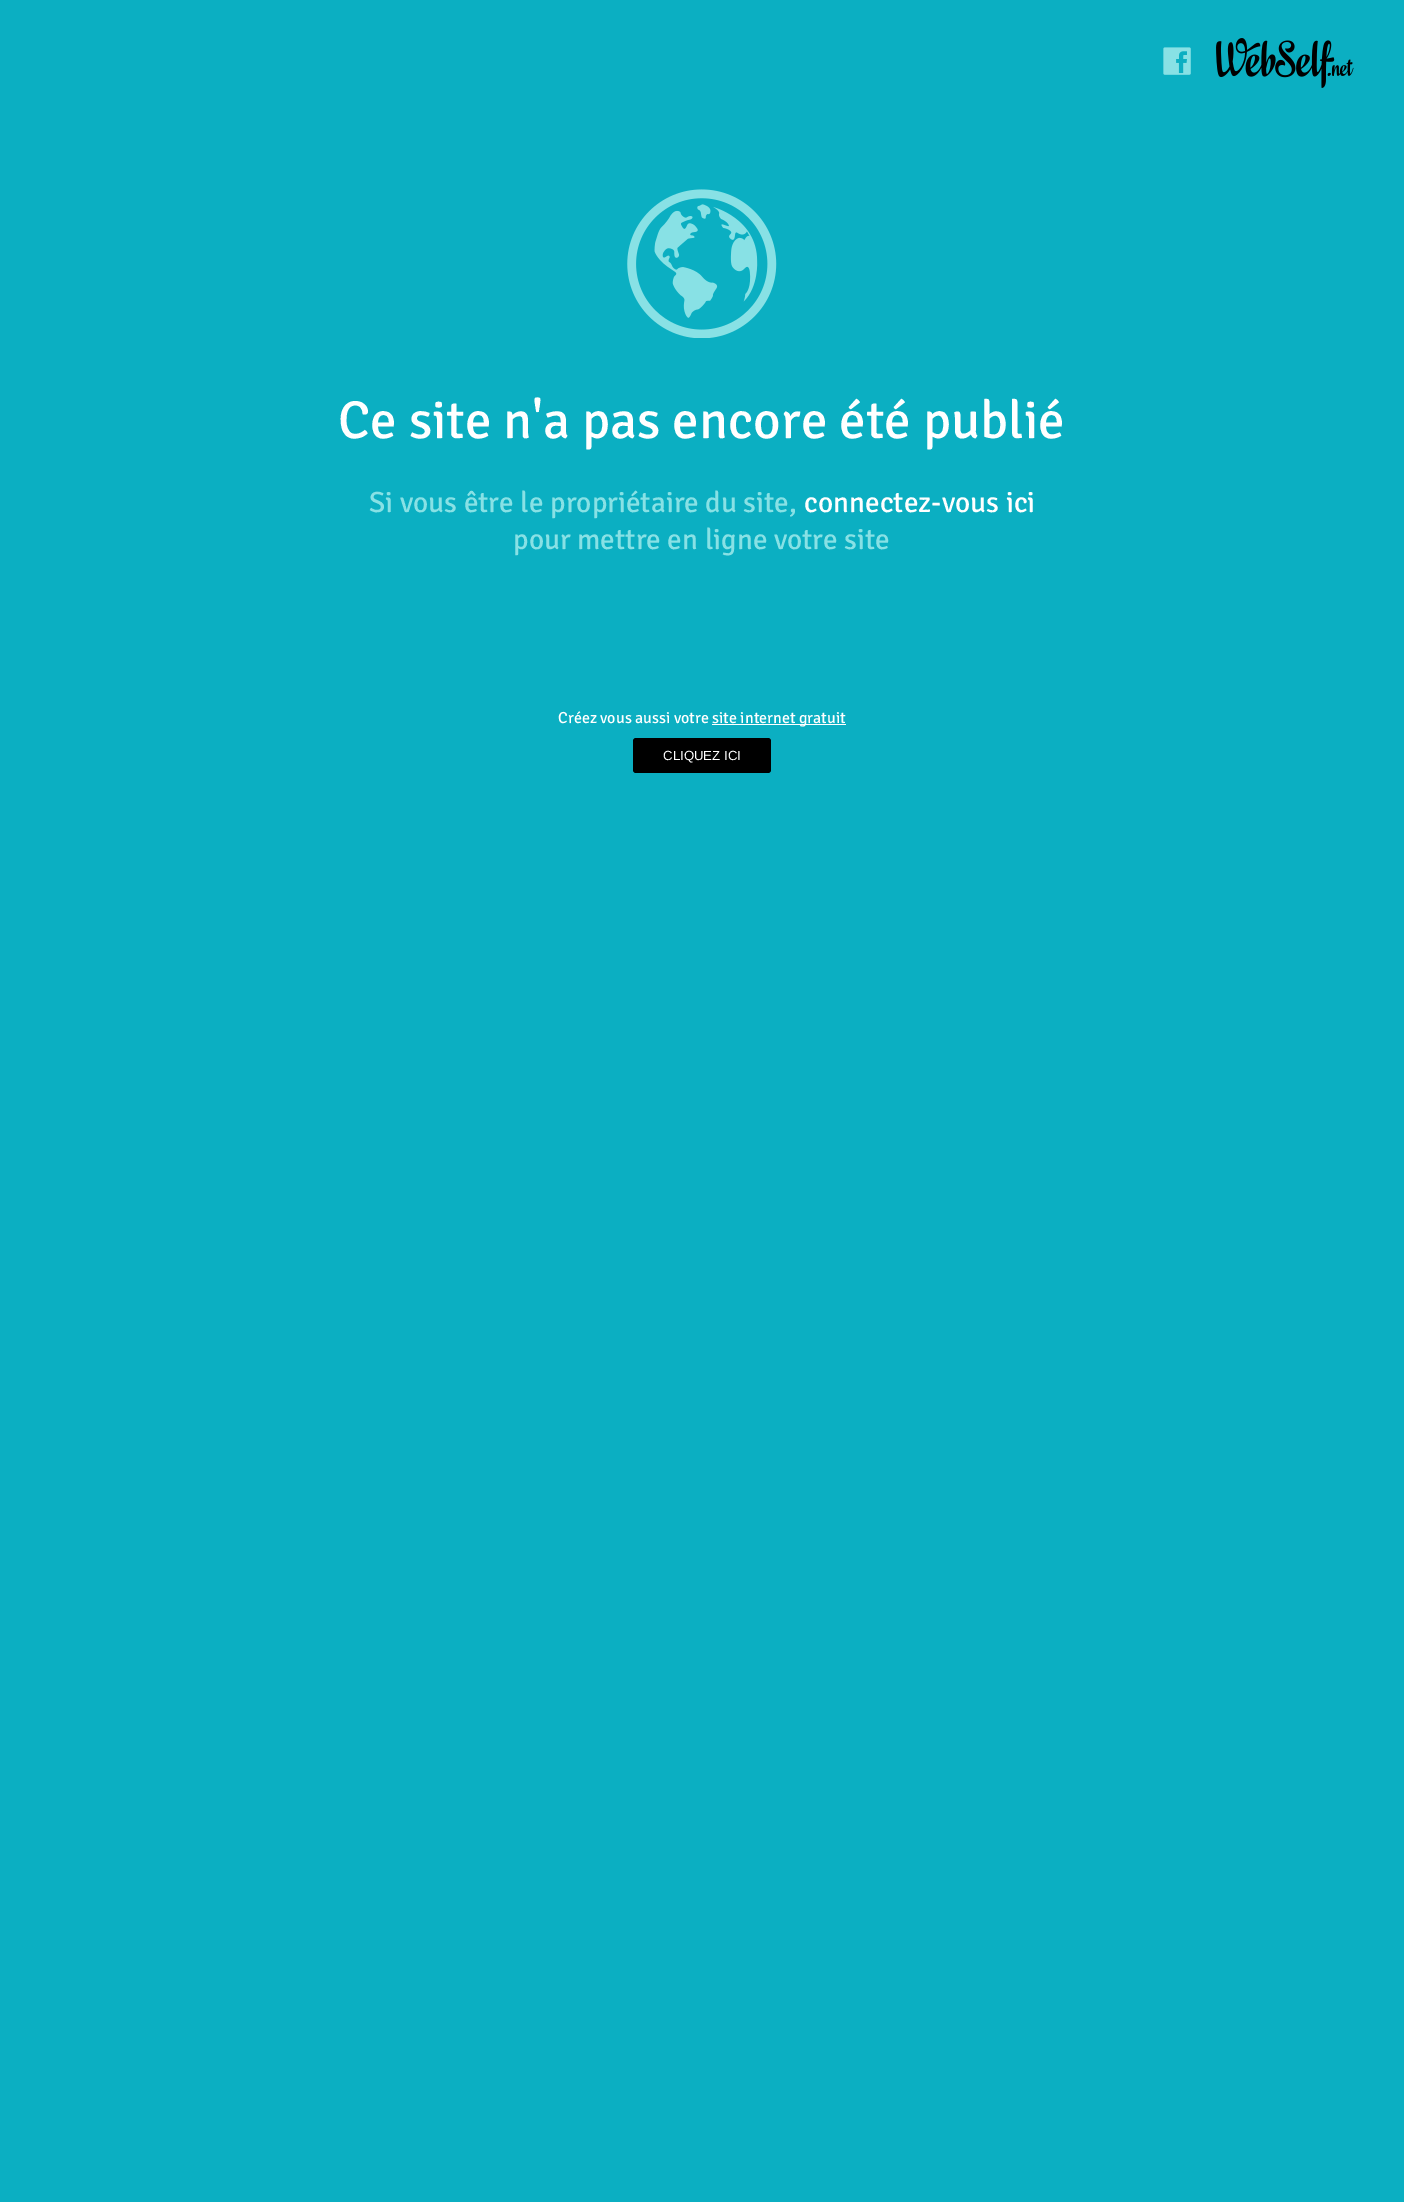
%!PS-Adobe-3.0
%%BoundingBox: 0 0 1404 2202
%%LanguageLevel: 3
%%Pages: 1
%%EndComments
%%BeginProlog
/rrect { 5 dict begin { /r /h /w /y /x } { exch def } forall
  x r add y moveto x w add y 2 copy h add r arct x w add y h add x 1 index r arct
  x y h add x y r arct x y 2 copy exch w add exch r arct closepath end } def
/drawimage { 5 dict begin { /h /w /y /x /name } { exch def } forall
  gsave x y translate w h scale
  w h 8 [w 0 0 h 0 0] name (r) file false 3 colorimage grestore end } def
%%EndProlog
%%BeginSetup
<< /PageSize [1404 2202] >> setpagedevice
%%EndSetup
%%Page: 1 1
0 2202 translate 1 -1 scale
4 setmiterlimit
0.043 0.686 0.761 setrgbcolor
0 0 1404 2202 rectfill
(images/1.raw) 1163 47 28 28 drawimage
(images/2.raw) 1216 38 138 50 drawimage
(images/3.raw) 627 189 150 149 drawimage
1 setgray
712 724 134 1 rectfill
0 setgray
633 738 138 35 3 rrect fill
/Signika-Regular [53.3 0 0 -53.3 0 0] selectfont
1 setgray
338 438 moveto (Ce site n'a pas encore été publié) show
/Signika-Regular [29.3 0 0 -29.3 0 0] selectfont
0.533 0.882 0.898 setrgbcolor
369 512 moveto (Si vous être le propriétaire du site,) show
1 setgray
804 512 moveto (connectez-vous ici) show
0.533 0.882 0.898 setrgbcolor
513 549 moveto (pour mettre en ligne votre site) show
/Signika-Regular [16 0 0 -16 0 0] selectfont
1 setgray
558 723 moveto (Créez vous aussi votre) show
712 723 moveto (site internet gratuit) show
/LiberationSans-Regular [13.25 0 0 -13.25 0 0] selectfont
663 760 moveto (CLIQUEZ ICI) show
showpage
%%EOF
